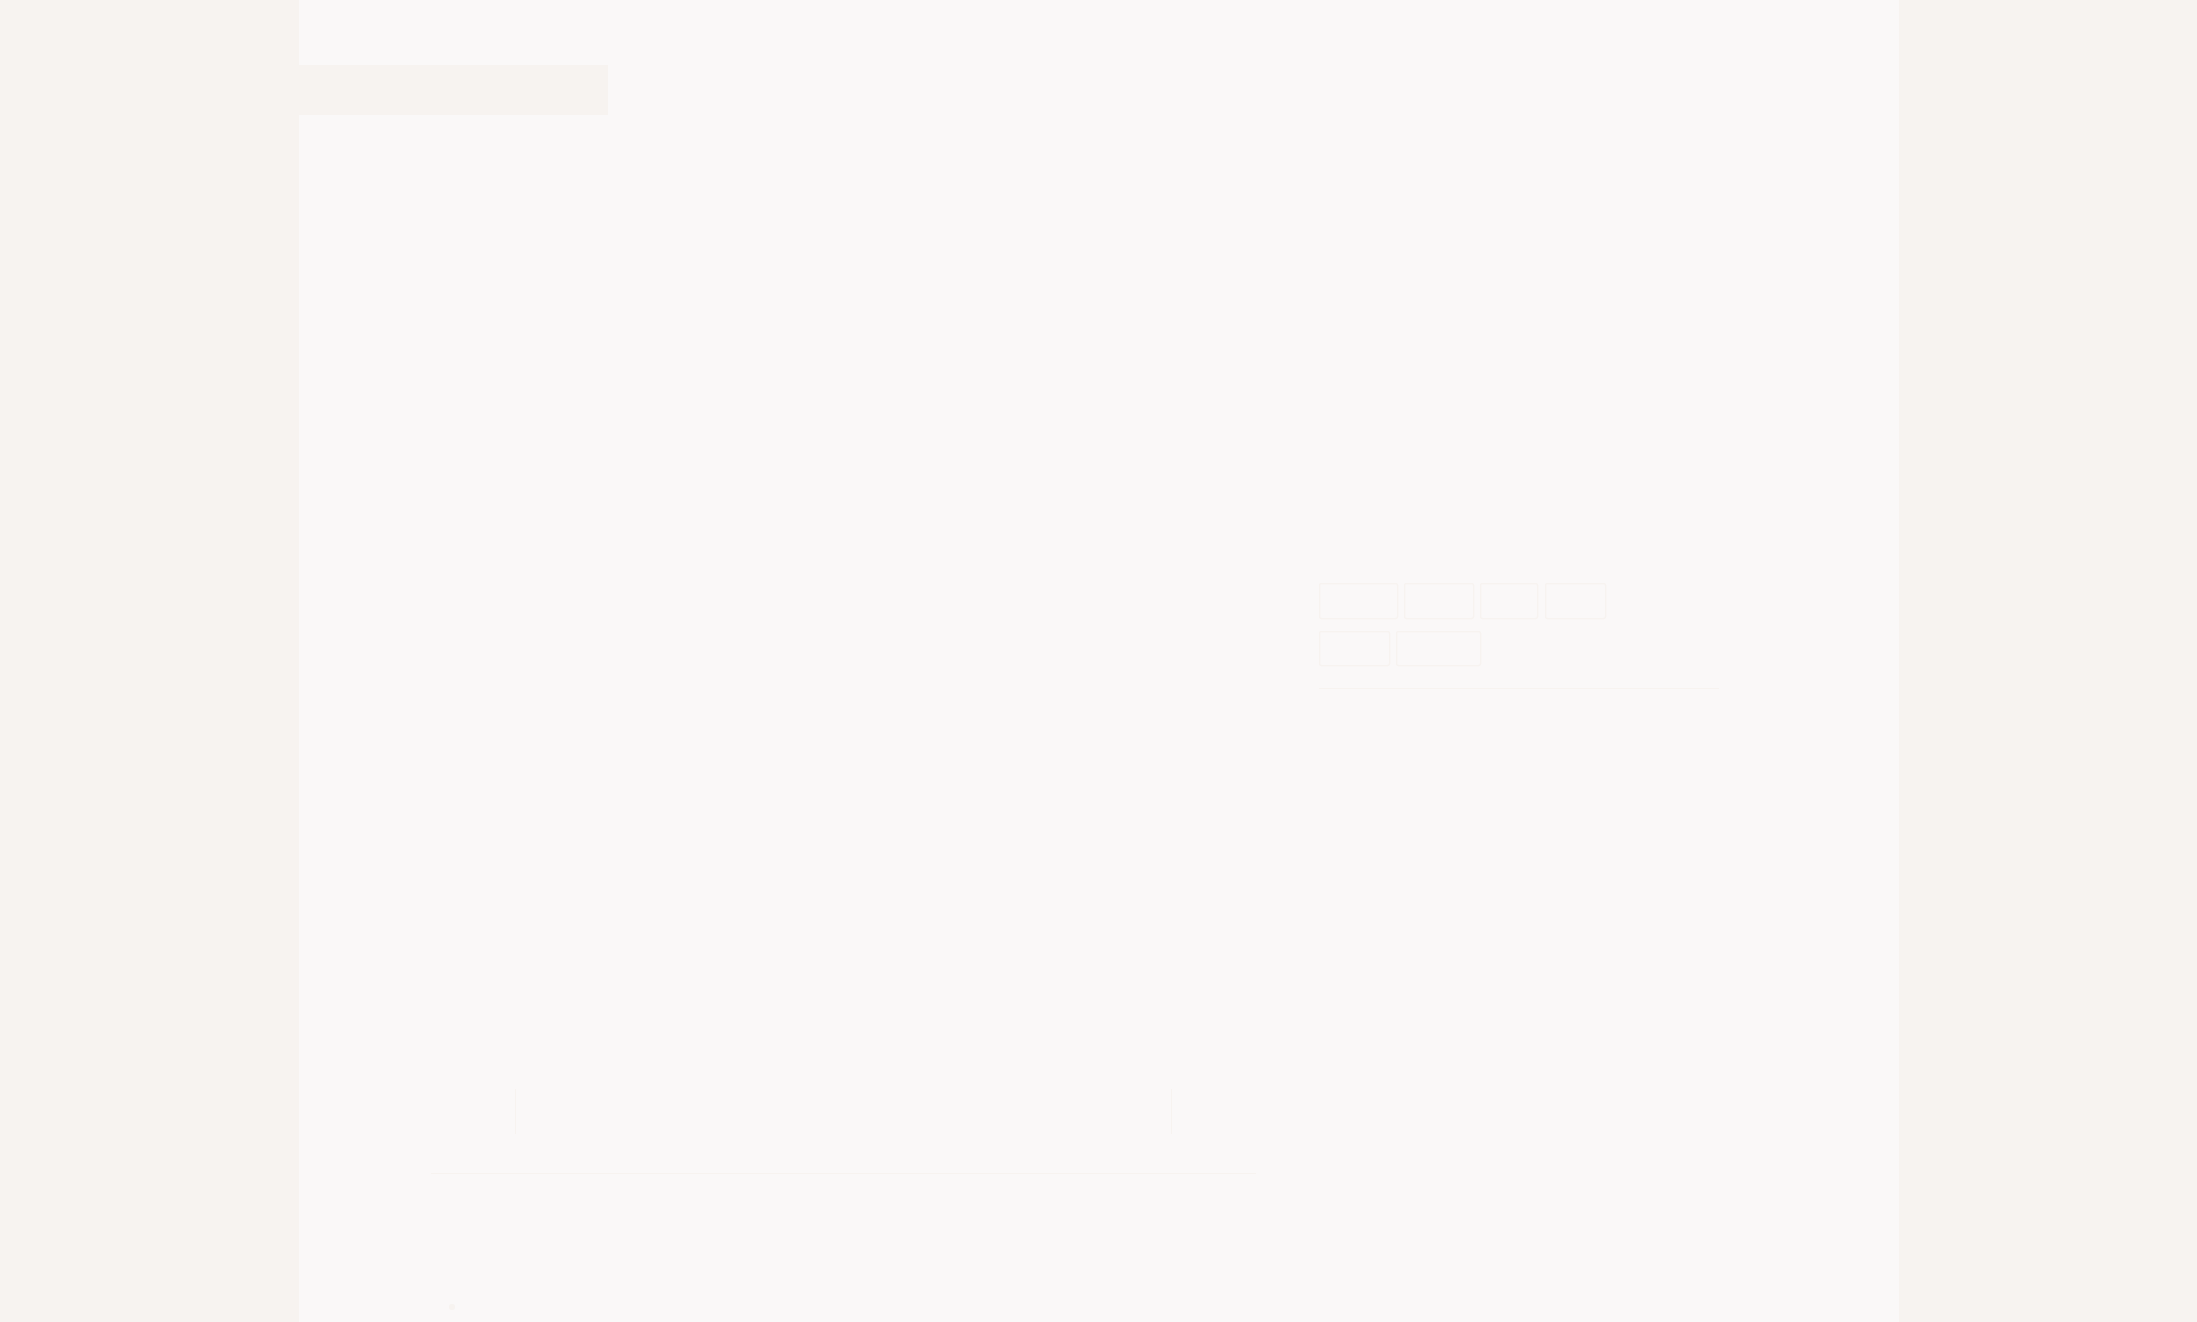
%!PS-Adobe-3.0
%%BoundingBox: 0 0 2197 1322
%%LanguageLevel: 3
%%Pages: 1
%%EndComments
%%BeginProlog
/rrect { 5 dict begin { /r /h /w /y /x } { exch def } forall
  x r add y moveto x w add y 2 copy h add r arct x w add y h add x 1 index r arct
  x y h add x y r arct x y 2 copy exch w add exch r arct closepath end } def
%%EndProlog
%%BeginSetup
<< /PageSize [2197 1322] >> setpagedevice
%%EndSetup
%%Page: 1 1
0 1322 translate 1 -1 scale
4 setmiterlimit
0.969 0.953 0.941 setrgbcolor
0 0 2197 1322 rectfill
0.98 0.973 0.973 setrgbcolor
299 0 1600 1322 rectfill
0.969 0.953 0.941 setrgbcolor
299 65 309 50 rectfill
1319.5 583.5 78 35 2 rrect stroke
1404.5 583.5 69 35 2 rrect stroke
1480.5 583.5 57 35 2 rrect stroke
1545.5 583.5 60 35 2 rrect stroke
1319.5 631.5 70 34 2 rrect stroke
1396.5 631.5 84 34 2 rrect stroke
1319 688 400 1 rectfill
431 1173 825 1 rectfill
1171 1089 1 45 rectfill
515 1089 1 45 rectfill
newpath 452 1307 3 0 360 arc closepath fill
showpage
%%EOF
